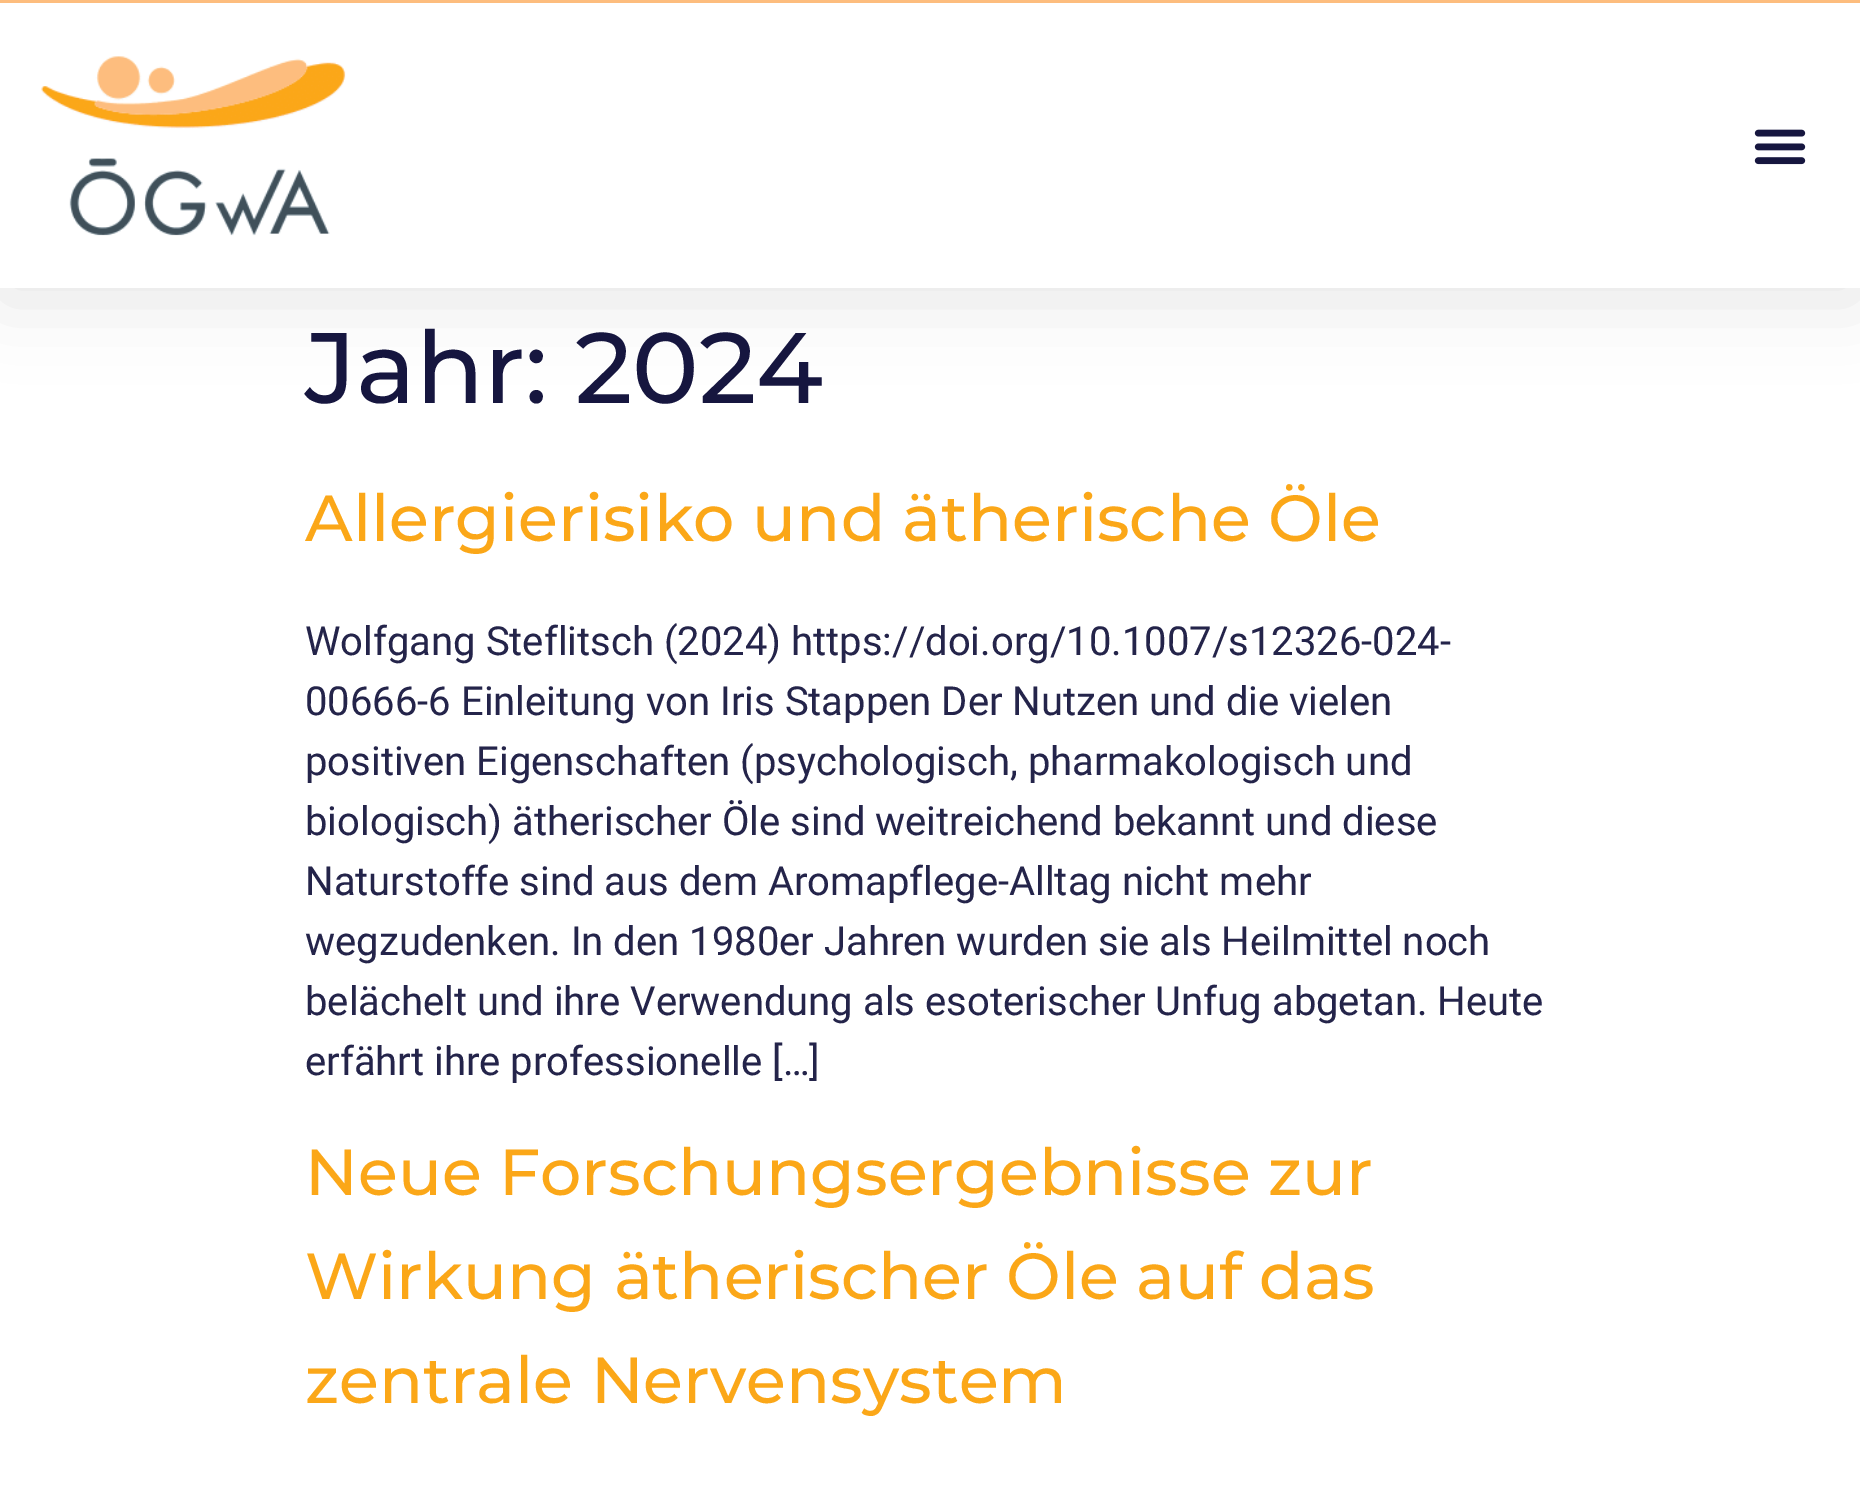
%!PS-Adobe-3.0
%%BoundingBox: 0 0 1860 1502
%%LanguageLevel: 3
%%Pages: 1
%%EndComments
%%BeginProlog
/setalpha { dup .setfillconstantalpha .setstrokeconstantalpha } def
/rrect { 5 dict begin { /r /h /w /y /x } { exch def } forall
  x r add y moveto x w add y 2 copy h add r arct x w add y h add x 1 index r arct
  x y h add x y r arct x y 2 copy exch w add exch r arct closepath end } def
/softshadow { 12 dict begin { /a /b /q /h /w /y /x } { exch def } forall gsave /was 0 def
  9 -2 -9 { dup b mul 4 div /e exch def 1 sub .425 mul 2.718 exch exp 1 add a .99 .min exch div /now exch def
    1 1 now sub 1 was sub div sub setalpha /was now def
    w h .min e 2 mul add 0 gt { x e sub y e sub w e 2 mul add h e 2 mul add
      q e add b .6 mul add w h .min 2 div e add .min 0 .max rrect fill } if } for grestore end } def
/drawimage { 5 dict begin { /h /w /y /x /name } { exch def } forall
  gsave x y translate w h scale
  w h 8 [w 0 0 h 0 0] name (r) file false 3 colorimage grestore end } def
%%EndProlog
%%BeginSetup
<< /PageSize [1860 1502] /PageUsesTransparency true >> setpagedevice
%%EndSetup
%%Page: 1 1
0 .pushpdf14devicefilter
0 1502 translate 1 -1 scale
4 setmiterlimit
1 setgray
0 0 1860 1502 rectfill
0 setgray
0 13 1860 287 0 37.5 0.1 softshadow
0.992 0.741 0.494 setrgbcolor
0 0 1860 3 rectfill
1 setgray
0 3 1860 285 rectfill
(images/1.raw) 41 56 305 180 drawimage
(images/2.raw) 1754 129 52 36 drawimage
/Montserrat-Medium [100 0 0 -100 0 0] selectfont
0.086 0.086 0.247 setrgbcolor
305 403 moveto (Jahr: 2024) show
/Montserrat-Medium [65 0 0 -65 0 0] selectfont
0.984 0.655 0.094 setrgbcolor
305 541 moveto (Allergierisiko und ätherische Öle) show
/Roboto-Regular [40 0 0 -40 0 0] selectfont
0.141 0.141 0.29 setrgbcolor
305 655 moveto (Wolfgang Steflitsch \(2024\) https://doi.org/10.1007/s12326-024-) show
305 715 moveto (00666-6 Einleitung von Iris Stappen Der Nutzen und die vielen) show
305 775 moveto (positiven Eigenschaften \(psychologisch, pharmakologisch und) show
305 835 moveto (biologisch\) ätherischer Öle sind weitreichend bekannt und diese) show
305 895 moveto (Naturstoffe sind aus dem Aromapflege-Alltag nicht mehr) show
305 955 moveto (wegzudenken. In den 1980er Jahren wurden sie als Heilmittel noch) show
305 1015 moveto (belächelt und ihre Verwendung als esoterischer Unfug abgetan. Heute) show
305 1075 moveto (erfährt ihre professionelle […]) show
/Montserrat-Medium [65 0 0 -65 0 0] selectfont
0.984 0.655 0.094 setrgbcolor
305 1195 moveto (Neue Forschungsergebnisse zur) show
305 1299 moveto (Wirkung ätherischer Öle auf das) show
305 1403 moveto (zentrale Nervensystem) show
.poppdf14devicefilter showpage
%%EOF
